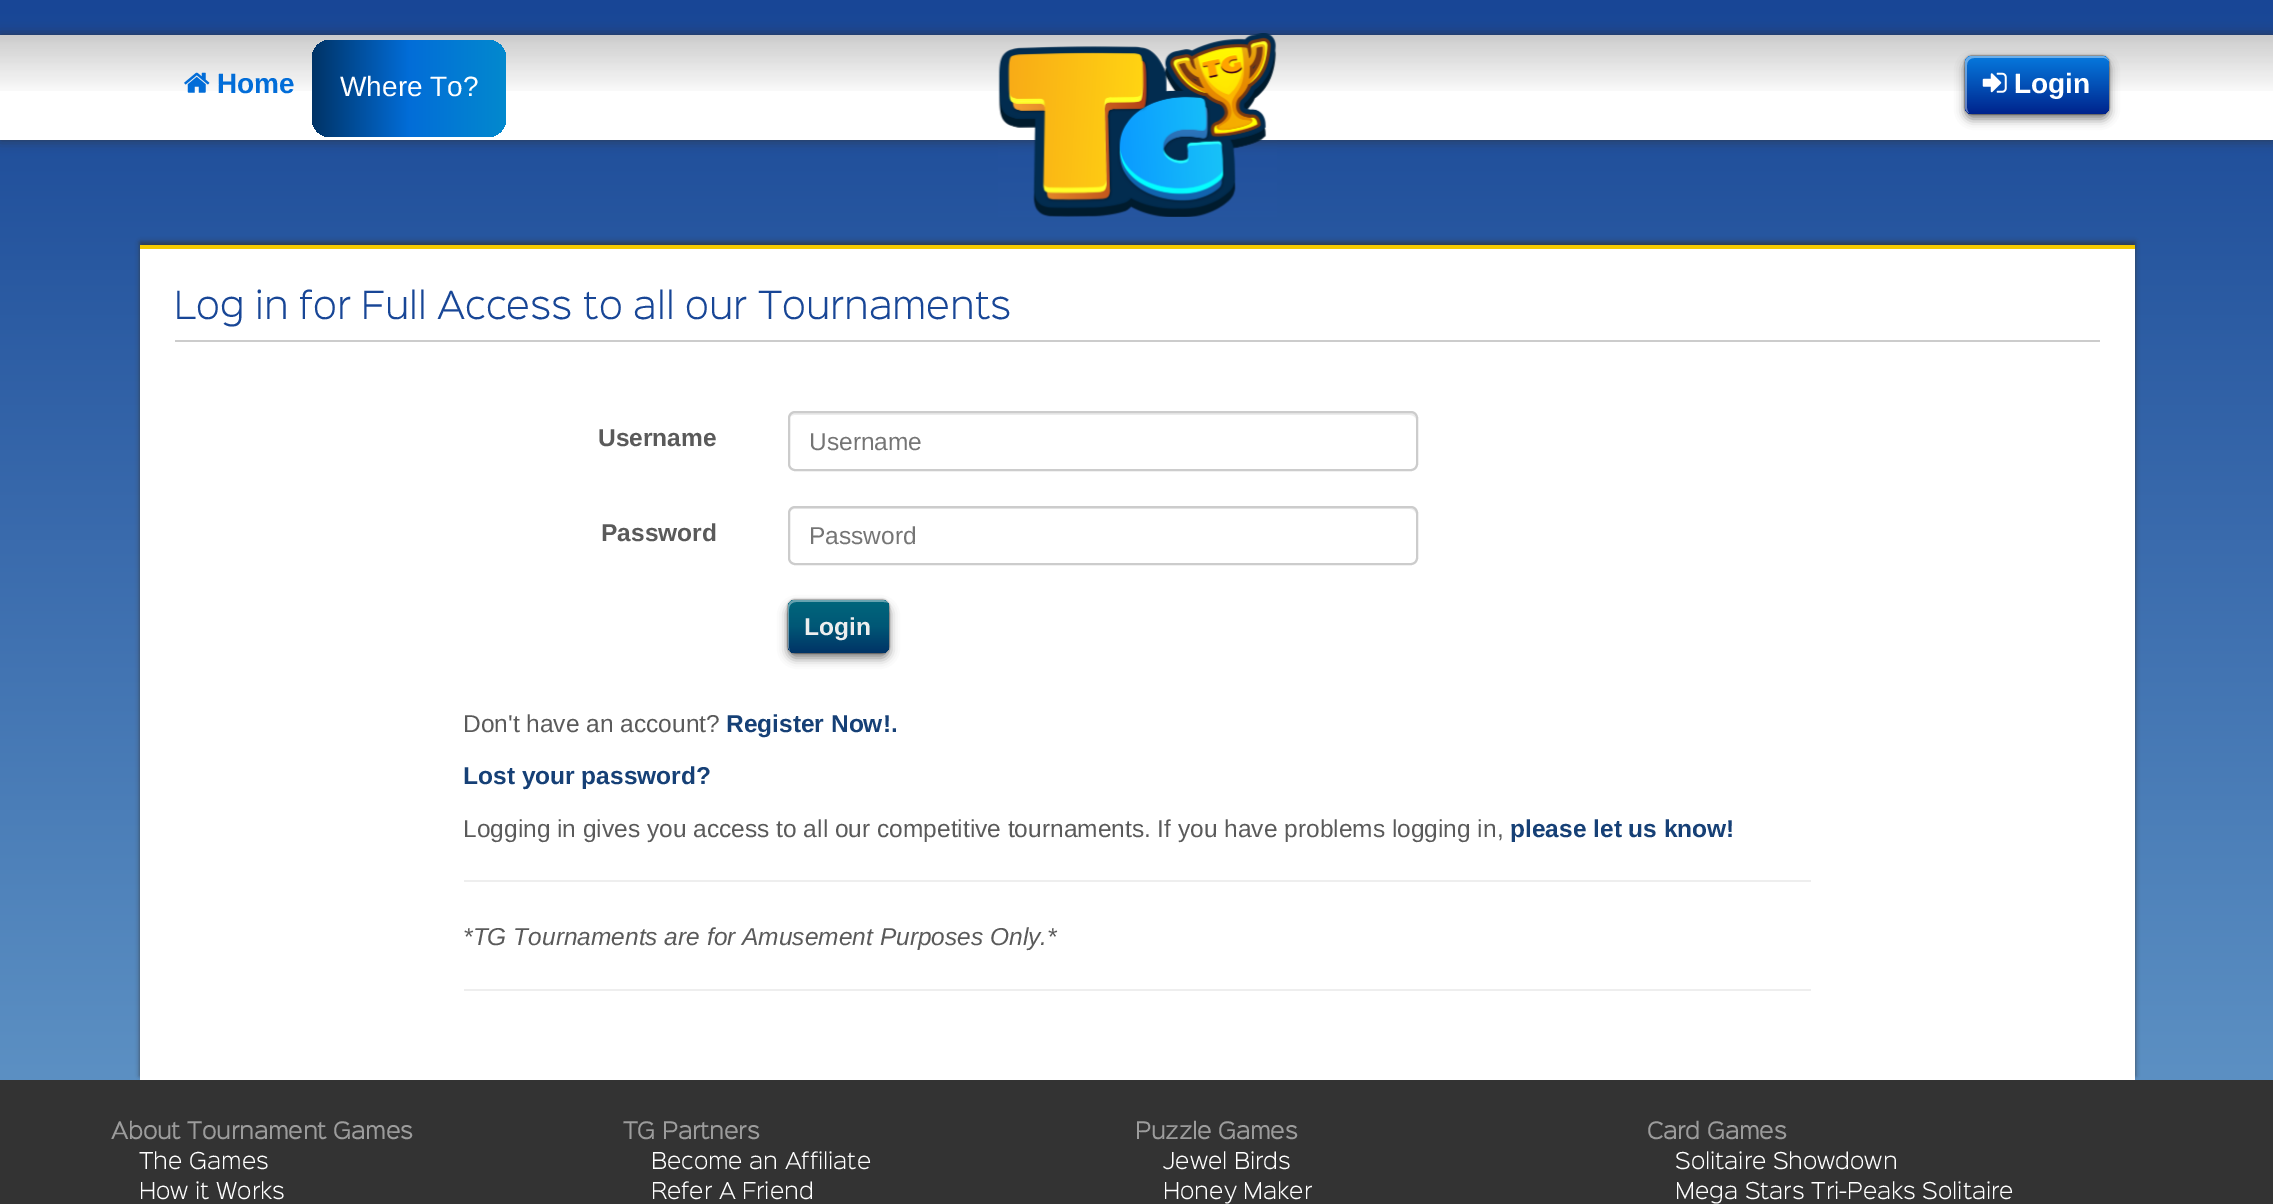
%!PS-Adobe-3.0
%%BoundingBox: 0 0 2273 1204
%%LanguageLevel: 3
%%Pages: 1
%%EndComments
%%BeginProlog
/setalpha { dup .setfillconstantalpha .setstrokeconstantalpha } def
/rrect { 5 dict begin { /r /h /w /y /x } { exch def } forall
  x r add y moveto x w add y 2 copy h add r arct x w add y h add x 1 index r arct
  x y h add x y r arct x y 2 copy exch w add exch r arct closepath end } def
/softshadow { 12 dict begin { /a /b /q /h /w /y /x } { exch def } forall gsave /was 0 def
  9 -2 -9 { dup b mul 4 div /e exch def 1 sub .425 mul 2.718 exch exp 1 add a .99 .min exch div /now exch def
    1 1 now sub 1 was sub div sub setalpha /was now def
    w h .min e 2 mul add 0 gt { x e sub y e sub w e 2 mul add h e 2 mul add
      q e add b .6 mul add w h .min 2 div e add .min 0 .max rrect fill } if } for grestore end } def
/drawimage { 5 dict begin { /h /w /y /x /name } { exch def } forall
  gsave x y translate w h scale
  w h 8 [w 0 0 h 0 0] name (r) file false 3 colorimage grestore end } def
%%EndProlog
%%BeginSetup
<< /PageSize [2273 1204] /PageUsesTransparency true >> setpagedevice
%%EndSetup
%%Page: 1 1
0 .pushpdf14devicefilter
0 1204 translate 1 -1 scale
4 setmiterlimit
1 setgray
0 0 2273 1204 rectfill
gsave newpath 0 0 moveto 2273 0 lineto 2273 1080 lineto 0 1080 lineto closepath clip newpath
<< /ShadingType 2 /ColorSpace /DeviceRGB /Coords [1137 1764 1137 0] /Extend [true true] /Function << /FunctionType 2 /Domain [0 1] /C0 [0.529 0.749 0.878] /C1 [0.094 0.275 0.588] /N 1 >> >> shfill grestore
0.196 setgray
0 35 2273 105 0 6 0.75 softshadow
1 setgray
0 91 2273 49 rectfill
(images/1.raw) 0 35 2273 56 drawimage
(images/2.raw) 184 72 26 21 drawimage
gsave 312 40 194 97 18 rrect clip newpath
<< /ShadingType 2 /ColorSpace /DeviceRGB /Coords [312 88 506 88] /Extend [true true] /Function << /FunctionType 3 /Domain [0 1] /Functions [<< /FunctionType 2 /Domain [0 1] /C0 [0 0.2 0.4] /C1 [0.008 0.427 0.847] /N 1 >> << /FunctionType 2 /Domain [0 1] /C0 [0.008 0.427 0.847] /C1 [0.008 0.537 0.808] /N 1 >>] /Bounds [0.5] /Encode [0 1 0 1] >> >> shfill grestore
(images/3.raw) 998 33 279 184 drawimage
0 setgray
1965 61 144 58 7 5 0.5 softshadow
1965 56 144 58 7 1 0.9 softshadow
gsave 1965 56 144 58 7 rrect clip newpath
<< /ShadingType 2 /ColorSpace /DeviceRGB /Coords [2037 114 2037 56] /Extend [true true] /Function << /FunctionType 3 /Domain [0 1] /Functions [<< /FunctionType 2 /Domain [0 1] /C0 [0 0.137 0.549] /C1 [0.012 0.314 0.714] /N 1 >> << /FunctionType 2 /Domain [0 1] /C0 [0.012 0.314 0.714] /C1 [0.024 0.475 0.871] /N 1 >>] /Bounds [0.5] /Encode [0 1 0 1] >> >> shfill grestore
0.4 setalpha
1 setgray
newpath 1974 58 moveto 2104 58 lineto 2106 58 2107 59 2109 61 curveto 2108 58 2105 56 2102 56 curveto 1972 56 lineto 1968 56 1965 59 1965 63 curveto 1965 107 lineto 1965 110 1967 112 1969 113 curveto 1968 112 1967 110 1967 108 curveto 1967 65 lineto 1967 61 1970 58 1974 58 curveto closepath fill
1 setalpha
(images/4.raw) 1982 72 25 21 drawimage
0.2 setgray
0 1080 2273 124 rectfill
0.196 setgray
140 242 1995 834 0 2.5 0.75 softshadow
1 setgray
140 249 1995 831 rectfill
0.961 0.792 0 setrgbcolor
140 245 1995 4 rectfill
0.8 setgray
175 340 1925 2 rectfill
0.925 setgray
newpath 794 415 moveto 1410 415 lineto 1413 415 1416 417 1416 420 curveto 1416 417 1415 413 1411 413 curveto 794 413 lineto 790 413 789 417 789 420 curveto 789 417 792 415 794 415 curveto closepath fill
0.8 setgray
2 setlinewidth
789 412 628 58 6 rrect stroke
0.925 setgray
newpath 794 509 moveto 1410 509 lineto 1413 509 1416 512 1416 514 curveto 1416 513 lineto 1416 510 1414 508 1411 508 curveto 794 508 lineto 791 508 789 510 789 513 curveto 789 514 lineto 789 512 792 509 794 509 curveto closepath fill
0.8 setgray
789 507 628 57 6 rrect stroke
0 setgray
788 606 101 52 7 5 0.5 softshadow
788 600 101 53 7 1 0.9 softshadow
gsave 788 600 101 53 7 rrect clip newpath
<< /ShadingType 2 /ColorSpace /DeviceRGB /Coords [838 653 838 600] /Extend [true true] /Function << /FunctionType 3 /Domain [0 1] /Functions [<< /FunctionType 2 /Domain [0 1] /C0 [0 0.2 0.4] /C1 [0 0.341 0.463] /N 1 >> << /FunctionType 2 /Domain [0 1] /C0 [0 0.341 0.463] /C1 [0.004 0.404 0.486] /N 1 >>] /Bounds [0.5] /Encode [0 1 0 1] >> >> shfill grestore
0.4 setalpha
1 setgray
newpath 796 602 moveto 884 602 lineto 885 602 887 602 888 603 curveto 887 601 884 600 882 600 curveto 795 600 lineto 791 600 788 603 788 607 curveto 788 646 lineto 788 648 789 649 790 651 curveto 789 648 lineto 789 609 lineto 789 605 792 602 796 602 curveto closepath fill
1 setalpha
0.933 setgray
464 880 1347 2 rectfill
464 989 1347 2 rectfill
/LiberationSans-Bold [28 0 0 -28 0 0] selectfont
0.008 0.427 0.847 setrgbcolor
217 93 moveto (Home) show
/LiberationSans-Regular [28 0 0 -28 0 0] selectfont
1 setgray
340 96 moveto (Where To?) show
/LiberationSans-Bold [28 0 0 -28 0 0] selectfont
2014 93 moveto (Login) show
/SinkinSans-Light [35 0 0 -35 0 0] selectfont
0.094 0.275 0.588 setrgbcolor
174 319 moveto (Log in for Full Access to all our Tournaments) show
/LiberationSans-Bold [24.5 0 0 -24.5 0 0] selectfont
0.353 setgray
598 446 moveto (Username) show
/LiberationSans-Regular [24.5 0 0 -24.5 0 0] selectfont
0.459 setgray
809 450 moveto (Username) show
/LiberationSans-Bold [24.5 0 0 -24.5 0 0] selectfont
0.353 setgray
601 541 moveto (Password) show
/LiberationSans-Regular [24.5 0 0 -24.5 0 0] selectfont
0.459 setgray
809 544 moveto (Password) show
/LiberationSans-Bold [24.5 0 0 -24.5 0 0] selectfont
0.933 setgray
804 635 moveto (Login) show
/LiberationSans-Regular [24.5 0 0 -24.5 0 0] selectfont
0.353 setgray
463 732 moveto (Don't have an account?) show
/LiberationSans-Bold [24.5 0 0 -24.5 0 0] selectfont
0.086 0.251 0.463 setrgbcolor
726 732 moveto (Register Now!.) show
463 784 moveto (Lost your password?) show
/LiberationSans-Regular [24.5 0 0 -24.5 0 0] selectfont
0.353 setgray
463 837 moveto (Logging in gives you access to all our competitive tournaments. If you have problems logging in,) show
/LiberationSans-Bold [24.5 0 0 -24.5 0 0] selectfont
0.086 0.251 0.463 setrgbcolor
1510 837 moveto (please let us know!) show
/LiberationSans-Italic [24.5 0 0 -24.5 0 0] selectfont
0.353 setgray
463 945 moveto (*TG Tournaments are for Amusement Purposes Only.*) show
/SinkinSans-Bold [21 0 0 -21 0 0] selectfont
0.612 setgray
111 1139 moveto (About Tournament Games) show
/SinkinSans-Light [21 0 0 -21 0 0] selectfont
1 setgray
139 1169 moveto (The Games) show
139 1199 moveto (How it Works) show
/SinkinSans-Bold [21 0 0 -21 0 0] selectfont
0.612 setgray
623 1139 moveto (TG Partners) show
/SinkinSans-Light [21 0 0 -21 0 0] selectfont
1 setgray
651 1169 moveto (Become an Affiliate) show
651 1199 moveto (Refer A Friend) show
/SinkinSans-Bold [21 0 0 -21 0 0] selectfont
0.612 setgray
1135 1139 moveto (Puzzle Games) show
/SinkinSans-Light [21 0 0 -21 0 0] selectfont
1 setgray
1163 1169 moveto (Jewel Birds) show
1163 1199 moveto (Honey Maker) show
/SinkinSans-Bold [21 0 0 -21 0 0] selectfont
0.612 setgray
1647 1139 moveto (Card Games) show
/SinkinSans-Light [21 0 0 -21 0 0] selectfont
1 setgray
1675 1169 moveto (Solitaire Showdown) show
1675 1199 moveto (Mega Stars Tri-Peaks Solitaire) show
.poppdf14devicefilter showpage
%%EOF
